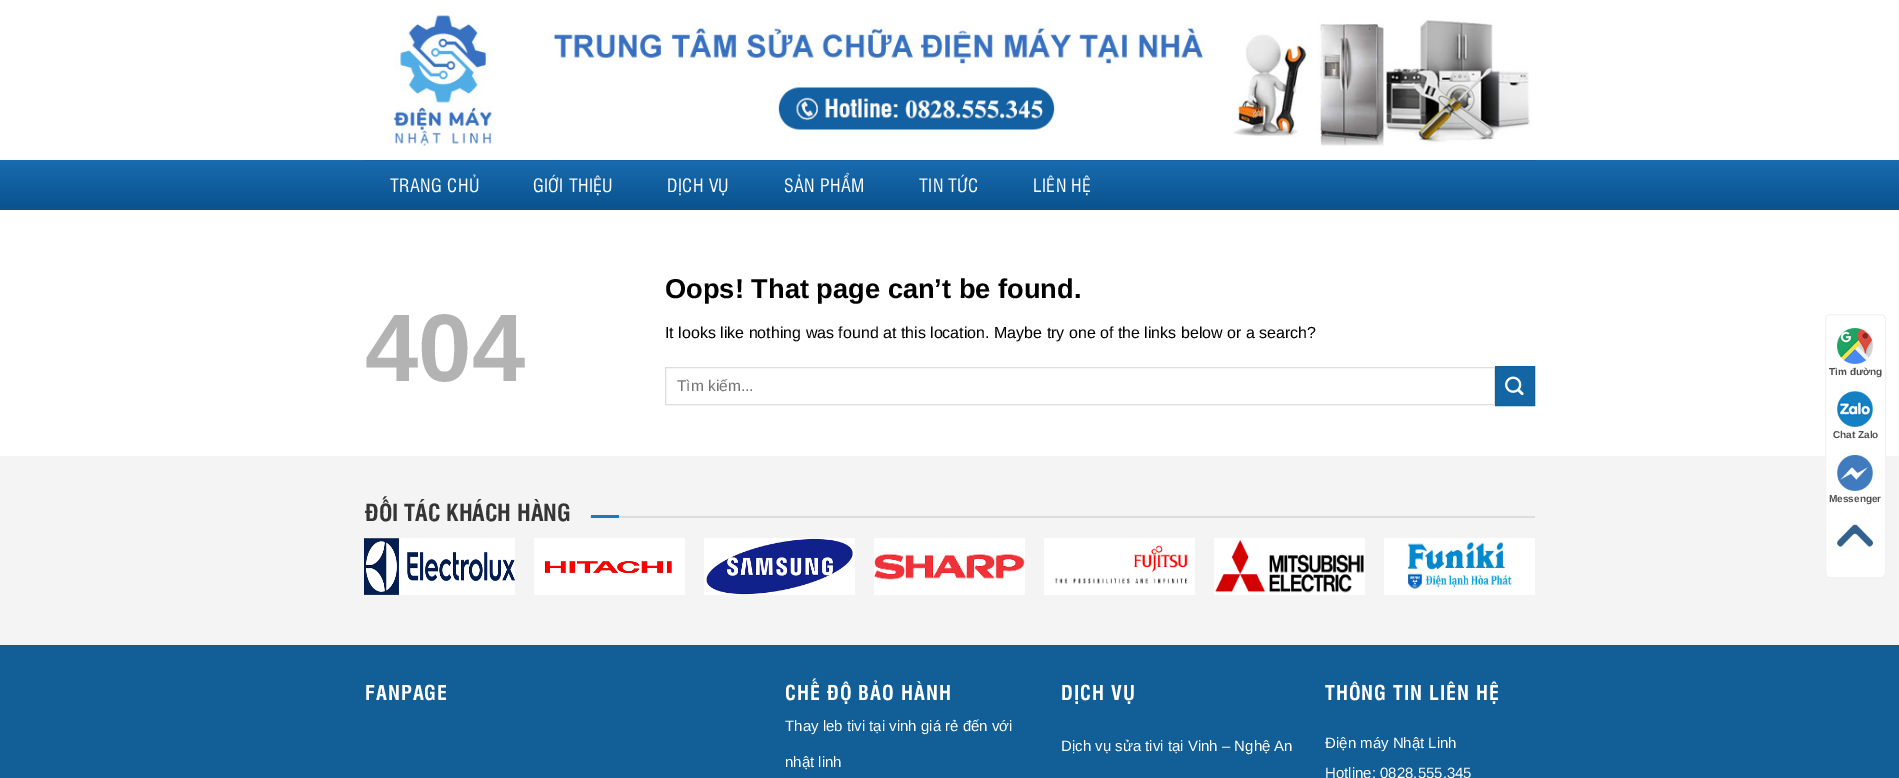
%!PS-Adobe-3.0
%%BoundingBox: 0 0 1899 778
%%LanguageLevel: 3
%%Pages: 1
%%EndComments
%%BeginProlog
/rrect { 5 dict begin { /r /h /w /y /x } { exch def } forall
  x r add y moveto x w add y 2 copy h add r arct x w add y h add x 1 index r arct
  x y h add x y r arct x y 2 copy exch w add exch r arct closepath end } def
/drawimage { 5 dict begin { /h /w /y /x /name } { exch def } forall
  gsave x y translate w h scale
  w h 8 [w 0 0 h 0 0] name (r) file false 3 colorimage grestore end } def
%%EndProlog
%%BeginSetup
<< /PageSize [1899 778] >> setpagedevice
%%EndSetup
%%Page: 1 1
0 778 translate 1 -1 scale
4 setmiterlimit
1 setgray
0 0 1899 778 rectfill
(images/1.raw) 388 11 1143 139 drawimage
gsave newpath 0 160 moveto 1899 160 lineto 1899 210 lineto 0 210 lineto closepath clip newpath
<< /ShadingType 2 /ColorSpace /DeviceRGB /Coords [950 160 950 210] /Extend [true true] /Function << /FunctionType 2 /Domain [0 1] /C0 [0.098 0.424 0.69] /C1 [0.035 0.322 0.557] /N 1 >> >> shfill grestore
0.09 0.38 0.62 setrgbcolor
365 160 1170 1 rectfill
0.867 setgray
665.5 367.5 829 37 rectstroke
0.075 0.396 0.643 setrgbcolor
newpath 1495.5 366.5 moveto 1534.5 366.5 lineto 1534.5 405.5 lineto 1495.5 405.5 lineto closepath gsave fill grestore
0.071 0.376 0.612 setrgbcolor
stroke
(images/2.raw) 1505 376 19 20 drawimage
0.957 setgray
0 456 1899 189 rectfill
0.867 setgray
590 516 945 2 rectfill
0.086 0.478 0.776 setrgbcolor
591 515 28 3 rectfill
(images/3.raw) 364 538 151 57 drawimage
(images/4.raw) 534 538 151 57 drawimage
(images/5.raw) 704 538 151 57 drawimage
(images/6.raw) 874 538 151 57 drawimage
(images/7.raw) 1044 538 151 57 drawimage
(images/8.raw) 1214 538 151 57 drawimage
(images/9.raw) 1384 538 151 57 drawimage
0.071 0.369 0.592 setrgbcolor
0 646 1899 132 rectfill
0.067 0.349 0.561 setrgbcolor
0 645 1899 1 rectfill
1 setgray
1825.5 314.5 60 263 4.5 rrect gsave fill grestore
0.949 setgray
stroke
(images/10.raw) 1837 328 36 36 drawimage
(images/11.raw) 1837 391 36 36 drawimage
(images/12.raw) 1837 455 36 36 drawimage
(images/13.raw) 1837 524 36 23 drawimage
/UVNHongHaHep-Regular [18 0 0 -18 0 0] selectfont
1 setgray
390 192 moveto 0.4 0 (TRANG CHỦ) ashow
533 192 moveto 0.4 0 (GIỚI THIỆU) ashow
667 192 moveto 0.4 0 (DỊCH VỤ) ashow
784 192 moveto 0.4 0 (SẢN PHẨM) ashow
919 192 moveto 0.4 0 (TIN TỨC) ashow
1033 192 moveto 0.4 0 (LIÊN HỆ) ashow
/LiberationSans-Bold [96 0 0 -96 0 0] selectfont
0.702 setgray
365 381 moveto (404) show
/LiberationSans-Bold [27.25 0 0 -27.25 0 0] selectfont
0 setgray
665 298 moveto (Oops! That page can’t be found.) show
/LiberationSans-Regular [16 0 0 -16 0 0] selectfont
665 338 moveto (It looks like nothing was found at this location. Maybe try one of the links below or a search?) show
/LiberationSans-Regular [15.5 0 0 -15.5 0 0] selectfont
0.459 setgray
677 391 moveto (Tìm kiếm...) show
/UVNHongHaHep-Bold [23 0 0 -23 0 0] selectfont
0.208 setgray
365 521 moveto (ĐỐI TÁC KHÁCH HÀNG) show
/UVNHongHaHep-Bold [20 0 0 -20 0 0] selectfont
1 setgray
365 700 moveto 1 0 (FANPAGE) ashow
785 700 moveto 1 0 (CHẾ ĐỘ BẢO HÀNH) ashow
/LiberationSans-Regular [15 0 0 -15 0 0] selectfont
785 731 moveto (Thay leb tivi tại vinh giá rẻ đến với) show
785 767 moveto (nhật linh) show
/UVNHongHaHep-Bold [20 0 0 -20 0 0] selectfont
1061 700 moveto 1 0 (DỊCH VỤ) ashow
/LiberationSans-Regular [15 0 0 -15 0 0] selectfont
1061 751 moveto (Dịch vụ sửa tivi tại Vinh – Nghệ An) show
/UVNHongHaHep-Bold [20 0 0 -20 0 0] selectfont
1325 700 moveto 1 0 (THÔNG TIN LIÊN HỆ) ashow
/LiberationSans-Regular [15 0 0 -15 0 0] selectfont
1325 748 moveto (Điện máy Nhật Linh) show
1325 778 moveto (Hotline: 0828.555.345) show
/LiberationSans-Bold [10 0 0 -10 0 0] selectfont
0.318 setgray
1829 375 moveto (Tìm đường) show
1833 438 moveto (Chat Zalo) show
1829 502 moveto (Messenger) show
showpage
%%EOF
